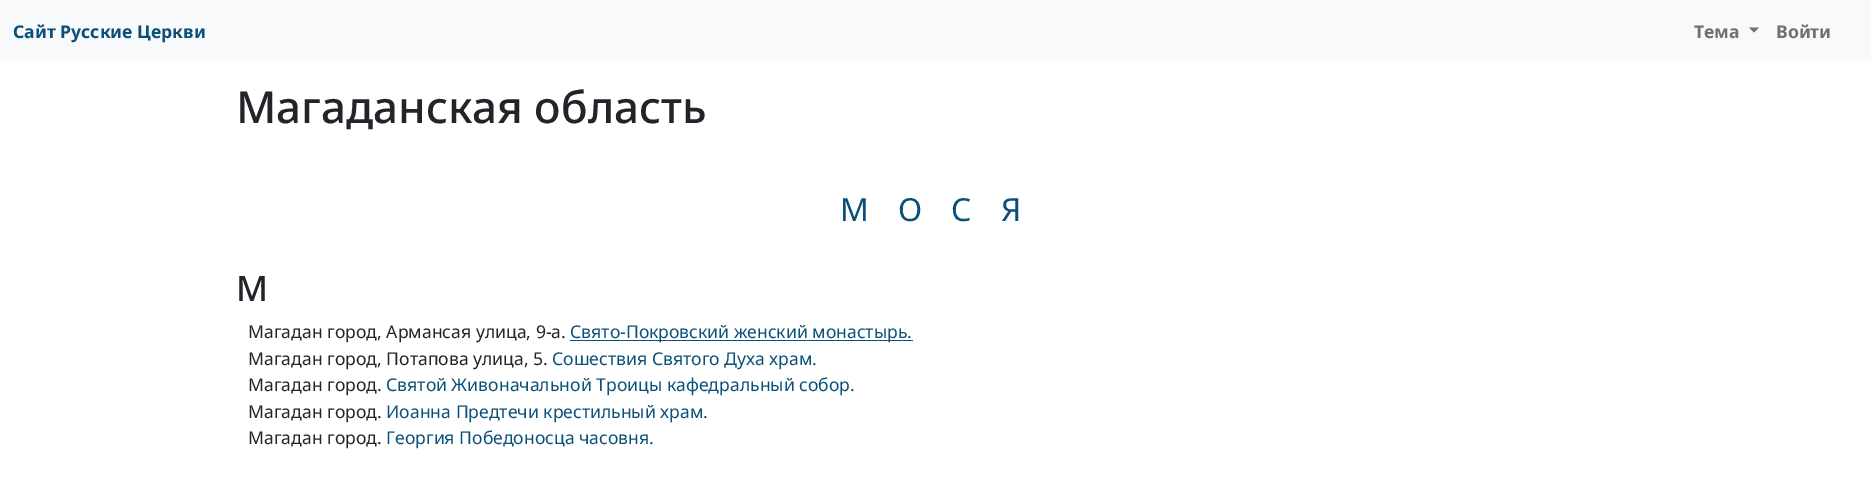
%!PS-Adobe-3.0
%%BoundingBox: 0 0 1871 503
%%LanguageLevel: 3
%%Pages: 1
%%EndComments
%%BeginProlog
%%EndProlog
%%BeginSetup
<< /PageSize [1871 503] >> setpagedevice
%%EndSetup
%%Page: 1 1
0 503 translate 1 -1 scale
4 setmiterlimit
1 setgray
0 0 1871 503 rectfill
0.973 0.976 0.98 setrgbcolor
0 0 1871 61 rectfill
0.439 0.439 0.443 setrgbcolor
newpath 1749 27.5 moveto 1759 27.5 lineto 1754 32.5 lineto closepath fill
0.039 0.314 0.478 setrgbcolor
570 340 343 1 rectfill
/NotoSans-Bold [17.6 0 0 -17.6 0 0] selectfont
13 38 moveto (Сайт Русские Церкви) show
0.439 0.439 0.443 setrgbcolor
1694 38 moveto (Тема) show
1776 38 moveto (Войти) show
/NotoSans-Medium [44 0 0 -44 0 0] selectfont
0.129 0.145 0.161 setrgbcolor
236 123 moveto (Магаданская область) show
/NotoSans-Regular [31.75 0 0 -31.75 0 0] selectfont
0.039 0.314 0.478 setrgbcolor
840 221 moveto 10.5 0 (М О С Я) ashow
/NotoSans-Medium [35 0 0 -35 0 0] selectfont
0.129 0.145 0.161 setrgbcolor
236 301 moveto (М) show
/NotoSans-Regular [17.6 0 0 -17.6 0 0] selectfont
248 338 moveto (Магадан город, Армансая улица, 9-а.) show
0.039 0.314 0.478 setrgbcolor
570 338 moveto (Свято-Покровский женский монастырь.) show
0.129 0.145 0.161 setrgbcolor
248 365 moveto (Магадан город, Потапова улица, 5.) show
0.039 0.314 0.478 setrgbcolor
552 365 moveto (Сошествия Святого Духа храм.) show
0.129 0.145 0.161 setrgbcolor
248 391 moveto (Магадан город.) show
0.039 0.314 0.478 setrgbcolor
386 391 moveto (Святой Живоначальной Троицы кафедральный собор.) show
0.129 0.145 0.161 setrgbcolor
248 418 moveto (Магадан город.) show
0.039 0.314 0.478 setrgbcolor
386 418 moveto (Иоанна Предтечи крестильный храм.) show
0.129 0.145 0.161 setrgbcolor
248 444 moveto (Магадан город.) show
0.039 0.314 0.478 setrgbcolor
386 444 moveto (Георгия Победоносца часовня.) show
showpage
%%EOF
